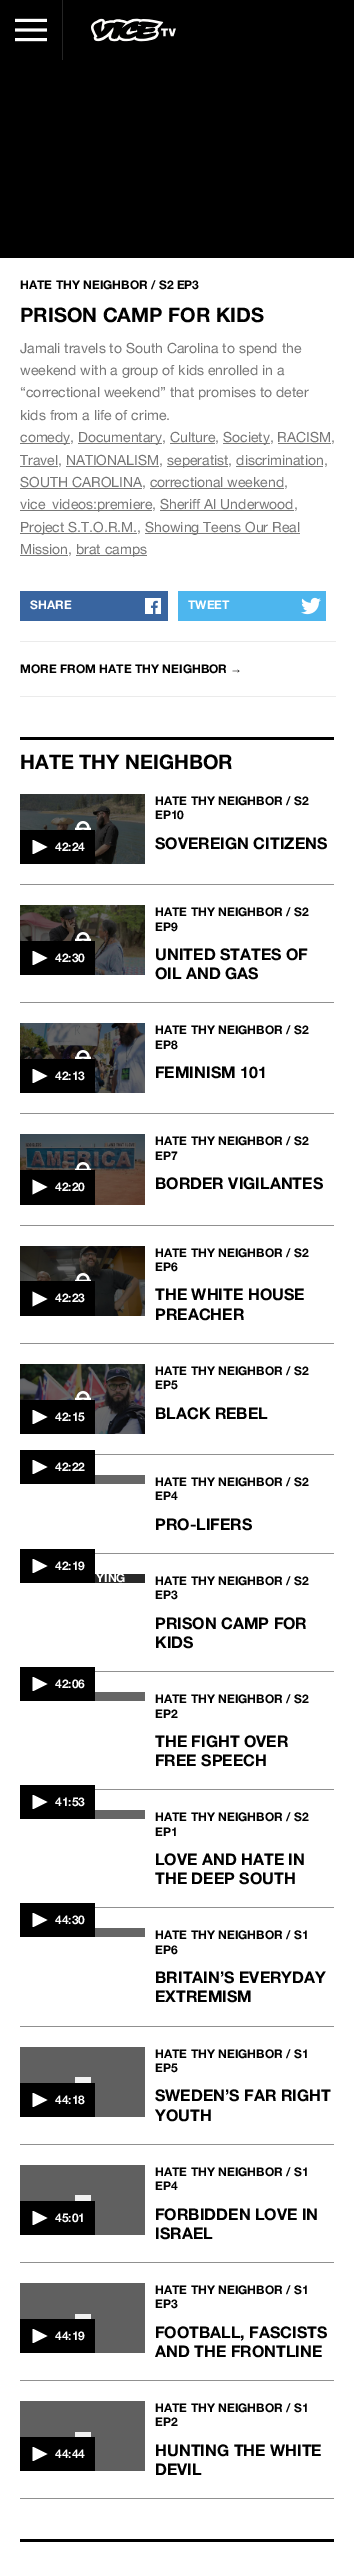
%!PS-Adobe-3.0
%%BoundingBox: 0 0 354 2550
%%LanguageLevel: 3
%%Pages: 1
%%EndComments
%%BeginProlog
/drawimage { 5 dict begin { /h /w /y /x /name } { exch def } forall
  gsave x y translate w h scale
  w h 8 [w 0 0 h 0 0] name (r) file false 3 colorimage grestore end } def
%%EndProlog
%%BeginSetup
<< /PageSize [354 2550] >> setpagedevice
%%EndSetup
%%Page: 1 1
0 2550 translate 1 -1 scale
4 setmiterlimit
1 setgray
0 0 354 2550 rectfill
0.4 setgray
95 1928 50 9 rectfill
95 1810 50 9 rectfill
95 1692 50 9 rectfill
0.161 setgray
95 1574 50 9 rectfill
0.4 setgray
95 1475 50 9 rectfill
0 setgray
0 0 354 258 rectfill
0.145 setgray
62 0 1 60 rectfill
(images/1.raw) 15 18 32 24 drawimage
(images/2.raw) 91 18 85 24 drawimage
0.467 setgray
20 443 50 1 rectfill
78 443 84 1 rectfill
223 443 47 1 rectfill
170 443 45 1 rectfill
278 443 53 1 rectfill
20 466 38 1 rectfill
167 466 61 1 rectfill
66 466 93 1 rectfill
236 466 87 1 rectfill
20 488 122 1 rectfill
150 488 134 1 rectfill
20 510 132 1 rectfill
160 510 134 1 rectfill
20 533 117 1 rectfill
145 533 155 1 rectfill
20 555 48 1 rectfill
76 555 71 1 rectfill
0.224 0.396 0.627 setrgbcolor
20 591 148 30 rectfill
(images/3.raw) 145 598 16 16 drawimage
0.302 0.714 0.933 setrgbcolor
178 591 148 30 rectfill
(images/4.raw) 301 597 20 18 drawimage
0.922 setgray
20 641 316 1 rectfill
20 696 316 1 rectfill
0 setgray
20 737 314 3 rectfill
0.565 setgray
20 884 314 1 rectfill
(images/5.raw) 20 794 125 70 drawimage
(images/6.raw) 75 821 16 9 drawimage
0 setgray
20 830 75 34 rectfill
gsave
30 840 20 14 rectclip
1 setgray
newpath 32.5 839.5 moveto 32.5 854.5 lineto 47.5 847 lineto closepath eofill
grestore
0.565 setgray
20 1002 314 1 rectfill
(images/7.raw) 20 905 125 70 drawimage
(images/8.raw) 75 932 16 9 drawimage
0 setgray
20 941 75 34 rectfill
gsave
30 951 20 14 rectclip
1 setgray
newpath 32.5 950.5 moveto 32.5 965.5 lineto 47.5 958 lineto closepath eofill
grestore
0.565 setgray
20 1113 314 1 rectfill
(images/9.raw) 20 1023 125 70 drawimage
(images/10.raw) 75 1050 16 9 drawimage
0 setgray
20 1059 75 34 rectfill
gsave
30 1069 20 14 rectclip
1 setgray
newpath 32.5 1068.5 moveto 32.5 1083.5 lineto 47.5 1076 lineto closepath eofill
grestore
0.565 setgray
20 1225 314 1 rectfill
(images/11.raw) 20 1134 125 71 drawimage
(images/12.raw) 75 1162 16 8 drawimage
0 setgray
20 1170 75 35 rectfill
1 setgray
newpath 32.5 1179.5 moveto 32.5 1194.5 lineto 47.5 1187 lineto closepath eofill
0.565 setgray
20 1343 314 1 rectfill
(images/13.raw) 20 1246 125 70 drawimage
(images/14.raw) 75 1273 16 8 drawimage
0 setgray
20 1281 75 35 rectfill
1 setgray
newpath 32.5 1291.5 moveto 32.5 1306.5 lineto 47.5 1299 lineto closepath eofill
0.565 setgray
95 1454 239 1 rectfill
(images/15.raw) 20 1364 125 70 drawimage
(images/16.raw) 75 1391 16 9 drawimage
0 setgray
20 1400 75 34 rectfill
gsave
30 1410 20 14 rectclip
1 setgray
newpath 32.5 1409.5 moveto 32.5 1424.5 lineto 47.5 1417 lineto closepath eofill
grestore
0.565 setgray
95 1553 239 1 rectfill
0 setgray
20 1450 75 34 rectfill
gsave
30 1460 20 14 rectclip
1 setgray
newpath 32.5 1459.5 moveto 32.5 1474.5 lineto 47.5 1467 lineto closepath eofill
grestore
0.565 setgray
95 1671 239 1 rectfill
0 setgray
20 1549 75 34 rectfill
gsave
30 1559 20 14 rectclip
1 setgray
newpath 32.5 1558.5 moveto 32.5 1573.5 lineto 47.5 1566 lineto closepath eofill
grestore
0.565 setgray
95 1789 239 1 rectfill
0 setgray
20 1667 75 34 rectfill
gsave
30 1677 20 14 rectclip
1 setgray
newpath 32.5 1676.5 moveto 32.5 1691.5 lineto 47.5 1684 lineto closepath eofill
grestore
0.565 setgray
95 1907 239 1 rectfill
0 setgray
20 1785 75 34 rectfill
gsave
30 1795 20 14 rectclip
1 setgray
newpath 32.5 1794.5 moveto 32.5 1809.5 lineto 47.5 1802 lineto closepath eofill
grestore
0.565 setgray
20 2026 314 1 rectfill
0 setgray
20 1903 75 34 rectfill
gsave
30 1913 20 14 rectclip
1 setgray
newpath 32.5 1912.5 moveto 32.5 1927.5 lineto 47.5 1920 lineto closepath eofill
grestore
0.565 setgray
20 2144 314 1 rectfill
0.376 setgray
20 2047 125 70 rectfill
0.945 setgray
75 2077 16 6 rectfill
0 setgray
20 2083 75 34 rectfill
gsave
30 2093 20 14 rectclip
1 setgray
newpath 32.5 2092.5 moveto 32.5 2107.5 lineto 47.5 2100 lineto closepath eofill
grestore
0.565 setgray
20 2262 314 1 rectfill
0.376 setgray
20 2165 125 70 rectfill
0.945 setgray
75 2195 16 6 rectfill
0 setgray
20 2201 75 34 rectfill
gsave
30 2211 20 14 rectclip
1 setgray
newpath 32.5 2210.5 moveto 32.5 2225.5 lineto 47.5 2218 lineto closepath eofill
grestore
0.565 setgray
20 2380 314 1 rectfill
0.376 setgray
20 2283 125 70 rectfill
0.945 setgray
75 2314 16 5 rectfill
0 setgray
20 2319 75 34 rectfill
gsave
30 2329 20 14 rectclip
1 setgray
newpath 32.5 2328.5 moveto 32.5 2343.5 lineto 47.5 2336 lineto closepath eofill
grestore
0.565 setgray
20 2498 314 1 rectfill
0.376 setgray
20 2401 125 70 rectfill
0.945 setgray
75 2432 16 5 rectfill
0 setgray
20 2437 75 34 rectfill
gsave
30 2447 20 14 rectclip
1 setgray
newpath 32.5 2446.5 moveto 32.5 2461.5 lineto 47.5 2454 lineto closepath eofill
grestore
20 2539 314 3 rectfill
/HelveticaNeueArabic-Bold [12 0 0 -12 0 0] selectfont
20 289 moveto (HATE THY NEIGHBOR / S2 EP3) show
/HelveticaNeueArabic-Bold [20 0 0 -20 0 0] selectfont
20 322 moveto (PRISON CAMP FOR KIDS) show
/HelveticaNeueArabic-Regular [14 0 0 -14 0 0] selectfont
0.467 setgray
20 353 moveto (Jamali travels to South Carolina to spend the) show
20 375 moveto (weekend with a group of kids enrolled in a) show
20 397 moveto (“correctional weekend” that promises to deter) show
20 420 moveto (kids from a life of crime.) show
20 442 moveto (comedy,) show
78 442 moveto (Documentary, Culture,) show
223 442 moveto (Society, RACISM,) show
20 465 moveto (Travel, NATIONALISM,) show
167 465 moveto (seperatist, discrimination,) show
20 487 moveto (SOUTH CAROLINA, correctional weekend,) show
20 509 moveto (vice_videos:premiere, Sheriff Al Underwood,) show
20 532 moveto (Project S.T.O.R.M.,) show
145 532 moveto (Showing Teens Our Real) show
20 554 moveto (Mission,) show
76 554 moveto (brat camps) show
/HelveticaNeueArabic-Bold [12 0 0 -12 0 0] selectfont
1 setgray
30 609 moveto (SHARE) show
188 609 moveto (TWEET) show
0 setgray
20 673 moveto (MORE FROM HATE THY NEIGHBOR) show
/LiberationSans-Bold [12 0 0 -12 0 0] selectfont
230 673 moveto (→) show
/HelveticaNeueArabic-Bold [20 0 0 -20 0 0] selectfont
20 769 moveto (HATE THY NEIGHBOR) show
/HelveticaNeueArabic-Bold [12 0 0 -12 0 0] selectfont
1 setgray
55 851 moveto (42:24) show
0 setgray
155 805 moveto (HATE THY NEIGHBOR / S2) show
155 819 moveto (EP10) show
/HelveticaNeueArabic-Bold [16 0 0 -16 0 0] selectfont
155 849 moveto (SOVEREIGN CITIZENS) show
/HelveticaNeueArabic-Bold [12 0 0 -12 0 0] selectfont
1 setgray
55 962 moveto (42:30) show
0 setgray
155 916 moveto (HATE THY NEIGHBOR / S2) show
155 931 moveto (EP9) show
/HelveticaNeueArabic-Bold [16 0 0 -16 0 0] selectfont
155 960 moveto (UNITED STATES OF) show
155 979 moveto (OIL AND GAS) show
/HelveticaNeueArabic-Bold [12 0 0 -12 0 0] selectfont
1 setgray
55 1080 moveto (42:13) show
0 setgray
155 1034 moveto (HATE THY NEIGHBOR / S2) show
155 1049 moveto (EP8) show
/HelveticaNeueArabic-Bold [16 0 0 -16 0 0] selectfont
155 1078 moveto (FEMINISM 101) show
/HelveticaNeueArabic-Bold [12 0 0 -12 0 0] selectfont
1 setgray
55 1191 moveto (42:20) show
0 setgray
155 1145 moveto (HATE THY NEIGHBOR / S2) show
155 1160 moveto (EP7) show
/HelveticaNeueArabic-Bold [16 0 0 -16 0 0] selectfont
155 1189 moveto (BORDER VIGILANTES) show
/HelveticaNeueArabic-Bold [12 0 0 -12 0 0] selectfont
1 setgray
55 1302 moveto (42:23) show
0 setgray
155 1257 moveto (HATE THY NEIGHBOR / S2) show
155 1271 moveto (EP6) show
/HelveticaNeueArabic-Bold [16 0 0 -16 0 0] selectfont
155 1300 moveto (THE WHITE HOUSE) show
155 1320 moveto (PREACHER) show
/HelveticaNeueArabic-Bold [12 0 0 -12 0 0] selectfont
1 setgray
55 1421 moveto (42:15) show
0 setgray
155 1375 moveto (HATE THY NEIGHBOR / S2) show
155 1389 moveto (EP5) show
/HelveticaNeueArabic-Bold [16 0 0 -16 0 0] selectfont
155 1419 moveto (BLACK REBEL) show
/HelveticaNeueArabic-Bold [12 0 0 -12 0 0] selectfont
1 setgray
55 1471 moveto (42:22) show
0 setgray
155 1486 moveto (HATE THY NEIGHBOR / S2) show
155 1500 moveto (EP4) show
/HelveticaNeueArabic-Bold [16 0 0 -16 0 0] selectfont
155 1530 moveto (PRO-LIFERS) show
/HelveticaNeueArabic-Bold [12 0 0 -12 0 0] selectfont
1 setgray
55 1570 moveto (42:19) show
96 1582 moveto (YING) show
0 setgray
155 1585 moveto (HATE THY NEIGHBOR / S2) show
155 1599 moveto (EP3) show
/HelveticaNeueArabic-Bold [16 0 0 -16 0 0] selectfont
155 1629 moveto (PRISON CAMP FOR) show
155 1648 moveto (KIDS) show
/HelveticaNeueArabic-Bold [12 0 0 -12 0 0] selectfont
1 setgray
55 1688 moveto (42:06) show
0 setgray
155 1703 moveto (HATE THY NEIGHBOR / S2) show
155 1718 moveto (EP2) show
/HelveticaNeueArabic-Bold [16 0 0 -16 0 0] selectfont
155 1747 moveto (THE FIGHT OVER) show
155 1766 moveto (FREE SPEECH) show
/HelveticaNeueArabic-Bold [12 0 0 -12 0 0] selectfont
1 setgray
55 1806 moveto (41:53) show
0 setgray
155 1821 moveto (HATE THY NEIGHBOR / S2) show
155 1836 moveto (EP1) show
/HelveticaNeueArabic-Bold [16 0 0 -16 0 0] selectfont
155 1865 moveto (LOVE AND HATE IN) show
155 1884 moveto (THE DEEP SOUTH) show
/HelveticaNeueArabic-Bold [12 0 0 -12 0 0] selectfont
1 setgray
55 1924 moveto (44:30) show
0 setgray
155 1939 moveto (HATE THY NEIGHBOR / S1) show
155 1954 moveto (EP6) show
/HelveticaNeueArabic-Bold [16 0 0 -16 0 0] selectfont
155 1983 moveto (BRITAIN’S EVERYDAY) show
155 2002 moveto (EXTREMISM) show
/HelveticaNeueArabic-Bold [12 0 0 -12 0 0] selectfont
1 setgray
55 2104 moveto (44:18) show
0 setgray
155 2058 moveto (HATE THY NEIGHBOR / S1) show
155 2072 moveto (EP5) show
/HelveticaNeueArabic-Bold [16 0 0 -16 0 0] selectfont
155 2101 moveto (SWEDEN’S FAR RIGHT) show
155 2121 moveto (YOUTH) show
/HelveticaNeueArabic-Bold [12 0 0 -12 0 0] selectfont
1 setgray
55 2222 moveto (45:01) show
0 setgray
155 2176 moveto (HATE THY NEIGHBOR / S1) show
155 2190 moveto (EP4) show
/HelveticaNeueArabic-Bold [16 0 0 -16 0 0] selectfont
155 2220 moveto (FORBIDDEN LOVE IN) show
155 2239 moveto (ISRAEL) show
/HelveticaNeueArabic-Bold [12 0 0 -12 0 0] selectfont
1 setgray
55 2340 moveto (44:19) show
0 setgray
155 2294 moveto (HATE THY NEIGHBOR / S1) show
155 2308 moveto (EP3) show
/HelveticaNeueArabic-Bold [16 0 0 -16 0 0] selectfont
155 2338 moveto (FOOTBALL, FASCISTS) show
155 2357 moveto (AND THE FRONTLINE) show
/HelveticaNeueArabic-Bold [12 0 0 -12 0 0] selectfont
1 setgray
55 2458 moveto (44:44) show
0 setgray
155 2412 moveto (HATE THY NEIGHBOR / S1) show
155 2426 moveto (EP2) show
/HelveticaNeueArabic-Bold [16 0 0 -16 0 0] selectfont
155 2456 moveto (HUNTING THE WHITE) show
155 2475 moveto (DEVIL) show
showpage
%%EOF
